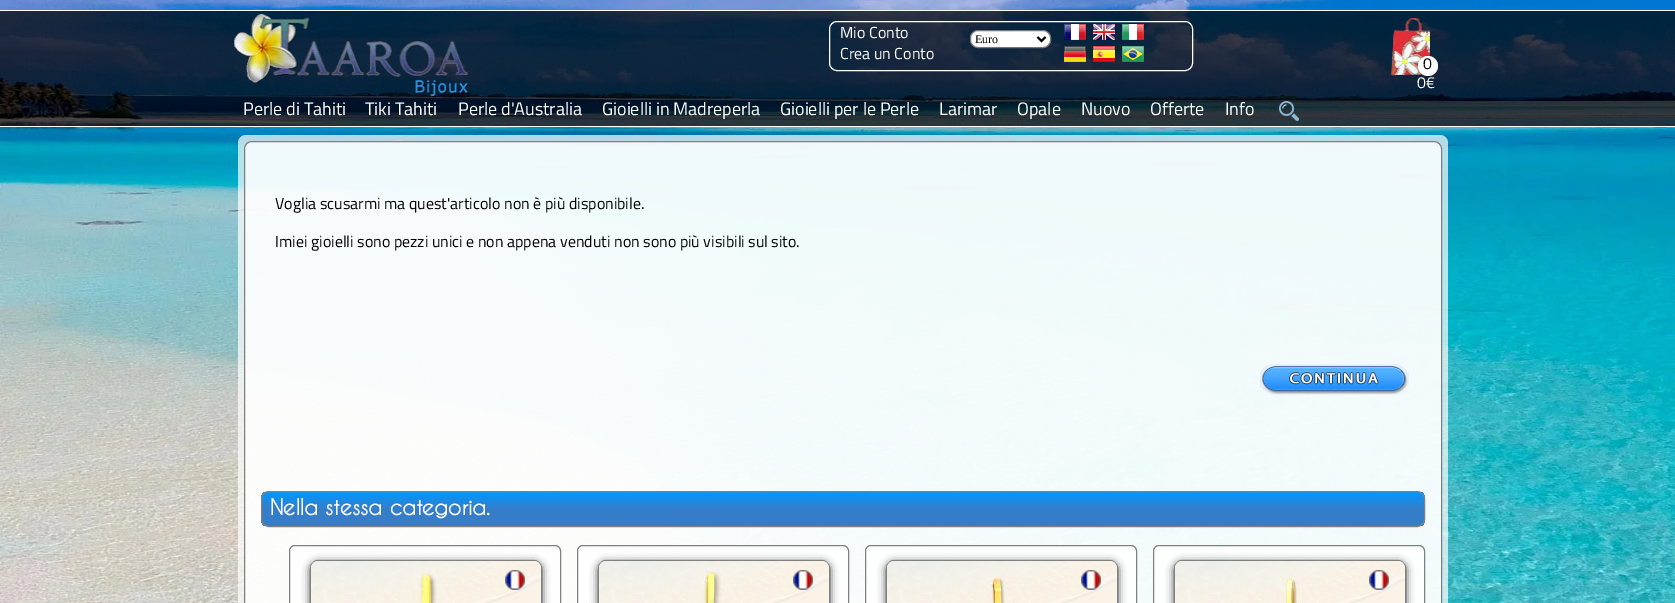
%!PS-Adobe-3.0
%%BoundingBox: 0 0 1675 603
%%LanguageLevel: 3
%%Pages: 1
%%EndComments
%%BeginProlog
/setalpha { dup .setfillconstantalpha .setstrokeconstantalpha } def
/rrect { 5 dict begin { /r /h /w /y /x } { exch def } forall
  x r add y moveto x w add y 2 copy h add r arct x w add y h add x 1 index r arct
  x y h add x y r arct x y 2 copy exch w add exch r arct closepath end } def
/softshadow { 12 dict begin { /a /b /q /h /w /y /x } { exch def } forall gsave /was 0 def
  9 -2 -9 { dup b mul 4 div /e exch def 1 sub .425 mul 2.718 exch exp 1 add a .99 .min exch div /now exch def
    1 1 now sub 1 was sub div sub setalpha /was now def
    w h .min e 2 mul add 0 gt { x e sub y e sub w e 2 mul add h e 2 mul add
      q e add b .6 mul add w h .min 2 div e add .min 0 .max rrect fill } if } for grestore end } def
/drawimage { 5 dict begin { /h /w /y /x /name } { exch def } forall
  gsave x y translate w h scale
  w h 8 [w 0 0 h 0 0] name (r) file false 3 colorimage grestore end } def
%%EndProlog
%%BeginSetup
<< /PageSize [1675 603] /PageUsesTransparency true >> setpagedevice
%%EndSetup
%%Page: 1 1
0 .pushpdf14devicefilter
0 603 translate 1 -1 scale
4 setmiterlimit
1 setgray
0 0 1675 603 rectfill
(images/1.raw) 0 0 1675 603 drawimage
0.7 setalpha
0 setgray
0 11 1675 115 rectfill
1 setalpha
1 setgray
0 10 1675 1 rectfill
0 126 1675 1 rectfill
(images/2.raw) 234 14 235 84 drawimage
829.5 21.5 363 49 7.5 rrect stroke
970.5 30.5 80 17 7.5 rrect gsave fill grestore
0.463 setgray
stroke
0 setgray
2 setlinewidth
newpath 1037.5 37 moveto 1041.5 41 lineto 1045.5 37 lineto stroke
(images/3.raw) 1064 24 22 16 drawimage
(images/4.raw) 1093 24 22 16 drawimage
(images/5.raw) 1122 24 22 16 drawimage
(images/6.raw) 1064 46 22 16 drawimage
(images/7.raw) 1093 46 22 16 drawimage
(images/8.raw) 1122 46 22 16 drawimage
(images/9.raw) 1390 18 41 58 drawimage
1 setgray
newpath 1428 66 10 0 360 arc closepath fill
(images/10.raw) 1279 101 20 20 drawimage
0.7 setalpha
238 135 1210 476 8 rrect fill
0.8 setalpha
244.5 141.5 1197 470 7.5 rrect fill
1 setalpha
0.502 setgray
1 setlinewidth
244.5 141.5 1197 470 7.5 rrect stroke
(images/11.raw) 1260 364 149 31 drawimage
gsave
261 491 1164 36 8 rrect clip newpath
gsave newpath 261 492 moveto 1425 492 lineto 1425 526 lineto 261 526 lineto closepath clip newpath
<< /ShadingType 2 /ColorSpace /DeviceRGB /Coords [843 492 843 526] /Extend [true true] /Function << /FunctionType 3 /Domain [0 1] /Functions [<< /FunctionType 2 /Domain [0 1] /C0 [0 0.6 1] /C1 [0.212 0.49 0.788] /N 1 >> << /FunctionType 2 /Domain [0 1] /C0 [0.212 0.49 0.788] /C1 [0.212 0.49 0.788] /N 1 >>] /Bounds [0.5] /Encode [0 1 0 1] >> >> shfill grestore
grestore
261.5 491.5 1163 35 7.5 rrect stroke
0.8 setalpha
1 setgray
289.5 545.5 271 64 5.5 rrect fill
1 setalpha
0.502 setgray
289.5 545.5 271 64 5.5 rrect stroke
0.2 setgray
310 562 232 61 8 4 1 softshadow
0.502 setgray
310.5 560.5 231 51 7.5 rrect stroke
(images/12.raw) 311 561 230 42 drawimage
(images/13.raw) 505 570 20 20 drawimage
0.8 setalpha
1 setgray
577.5 545.5 271 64 5.5 rrect fill
1 setalpha
0.502 setgray
577.5 545.5 271 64 5.5 rrect stroke
0.2 setgray
598 562 232 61 8 4 1 softshadow
0.502 setgray
598.5 560.5 231 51 7.5 rrect stroke
(images/14.raw) 599 561 230 42 drawimage
(images/13.raw) 793 570 20 20 drawimage
0.8 setalpha
1 setgray
865.5 545.5 271 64 5.5 rrect fill
1 setalpha
0.502 setgray
865.5 545.5 271 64 5.5 rrect stroke
0.2 setgray
886 562 232 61 8 4 1 softshadow
0.502 setgray
886.5 560.5 231 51 7.5 rrect stroke
(images/15.raw) 887 561 230 42 drawimage
(images/13.raw) 1081 570 20 20 drawimage
0.8 setalpha
1 setgray
1153.5 545.5 271 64 5.5 rrect fill
1 setalpha
0.502 setgray
1153.5 545.5 271 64 5.5 rrect stroke
0.2 setgray
1174 562 232 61 8 4 1 softshadow
0.502 setgray
1174.5 560.5 231 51 7.5 rrect stroke
(images/16.raw) 1175 561 230 42 drawimage
(images/13.raw) 1369 570 20 20 drawimage
/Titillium-Regular [16 0 0 -16 0 0] selectfont
1 setgray
840 38 moveto (Mio Conto) show
840 59 moveto (Crea un Conto) show
/LiberationSerif-Regular [12 0 0 -12 0 0] selectfont
0 setgray
975 43 moveto (Euro) show
/Titillium-Regular [16 0 0 -16 0 0] selectfont
1423 69 moveto (0) show
1 setgray
1417 88 moveto (0€) show
/Titillium-Regular [18 0 0 -18 0 0] selectfont
243 115 moveto (Perle di Tahiti) show
365 115 moveto (Tiki Tahiti) show
458 115 moveto (Perle d'Australia) show
602 115 moveto (Gioielli in Madreperla) show
780 115 moveto (Gioielli per le Perle) show
939 115 moveto (Larimar) show
1017 115 moveto (Opale) show
1081 115 moveto (Nuovo) show
1150 115 moveto (Offerte) show
1225 115 moveto (Info) show
/Titillium-Regular [16 0 0 -16 0 0] selectfont
0 setgray
275 209 moveto (Voglia scusarmi ma quest'articolo non è più disponibile.) show
275 247 moveto (Imiei gioielli sono pezzi unici e non appena venduti non sono più visibili sul sito.) show
/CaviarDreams-Bold [21 0 0 -21 0 0] selectfont
1 setgray
270 515 moveto (Nella stessa categoria.) show
.poppdf14devicefilter showpage
%%EOF
